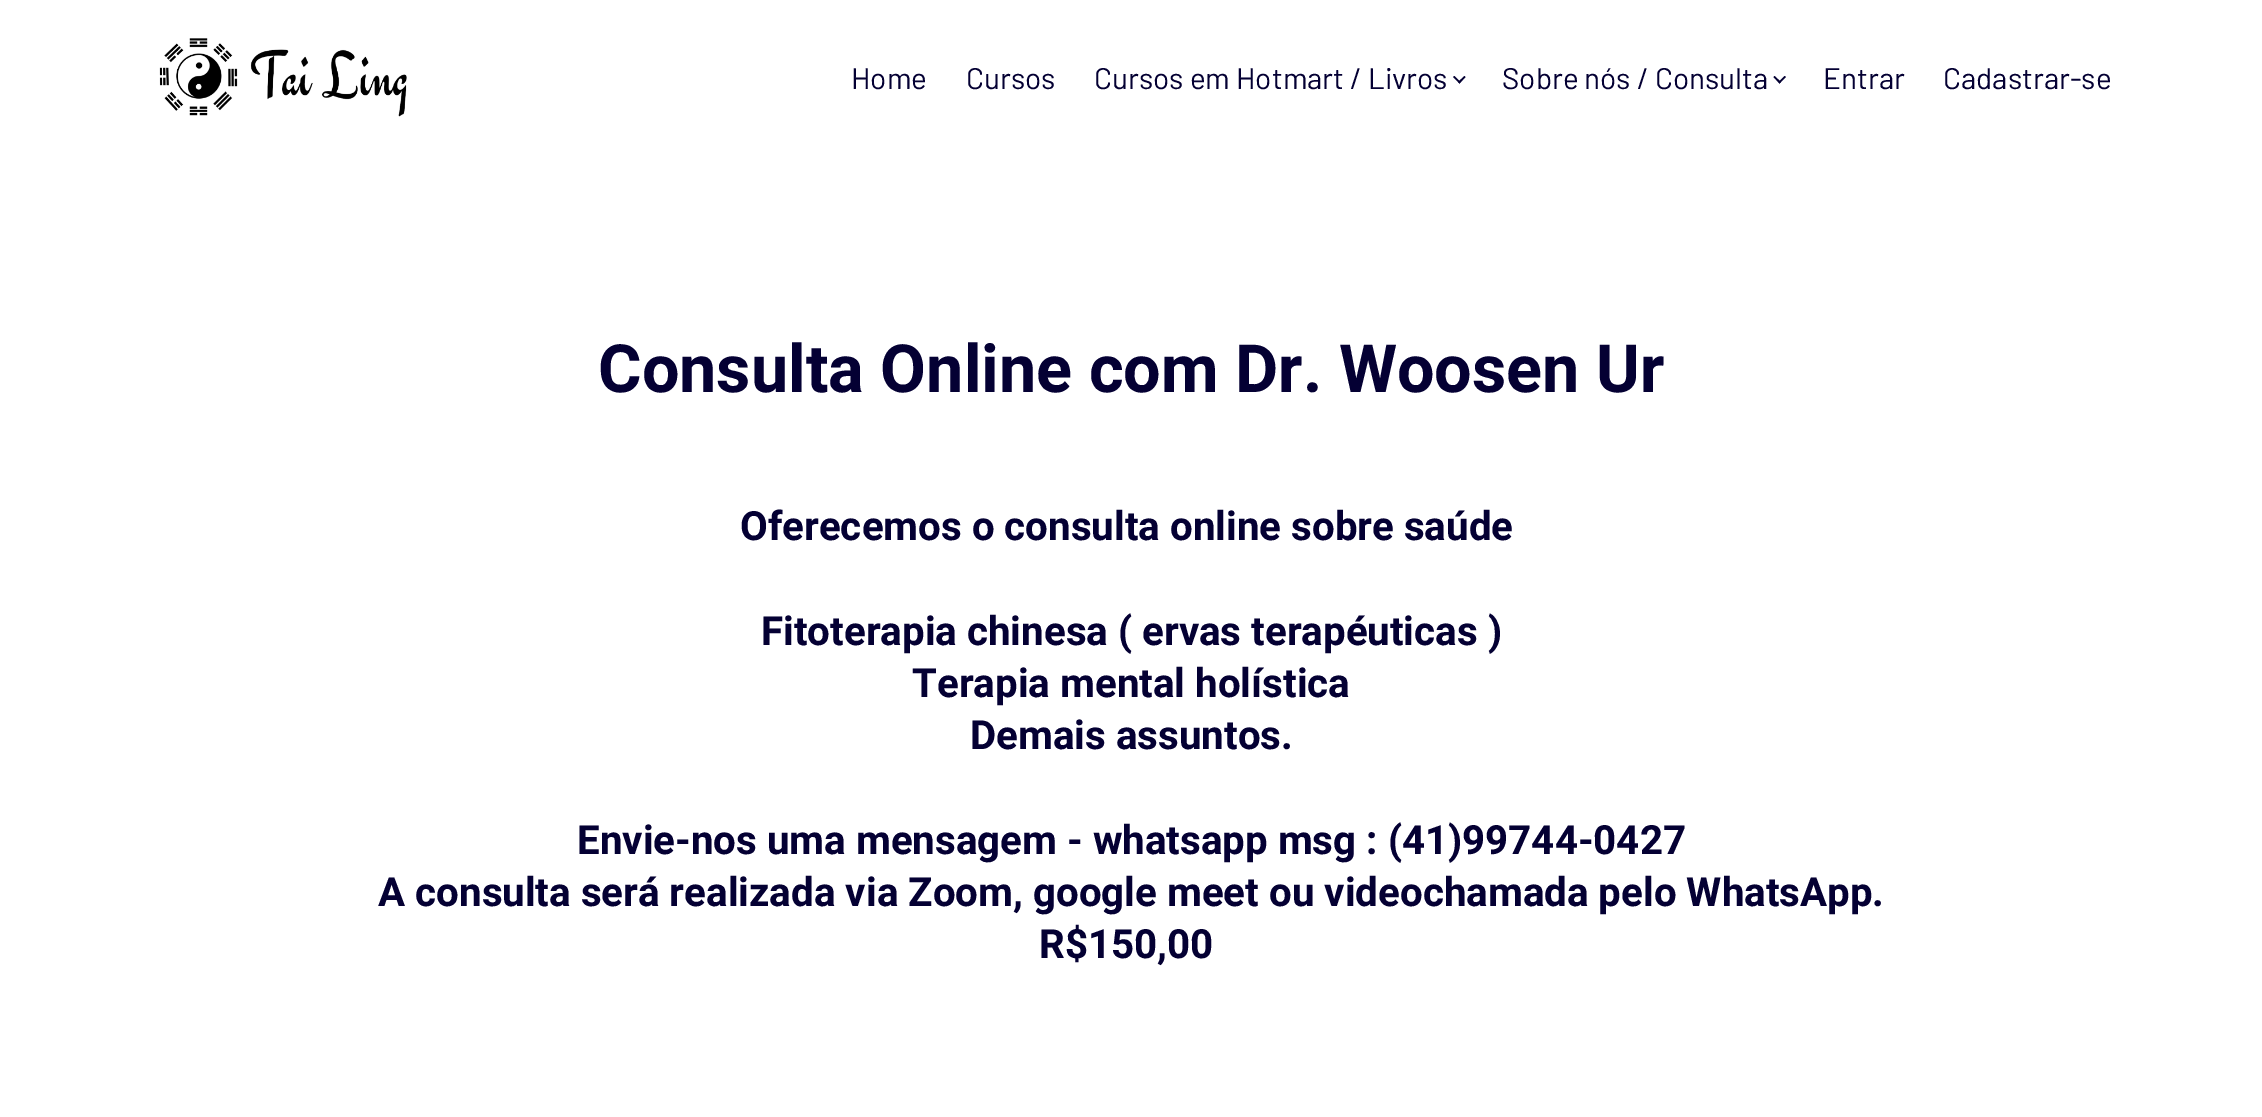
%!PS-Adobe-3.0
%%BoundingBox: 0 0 2262 1117
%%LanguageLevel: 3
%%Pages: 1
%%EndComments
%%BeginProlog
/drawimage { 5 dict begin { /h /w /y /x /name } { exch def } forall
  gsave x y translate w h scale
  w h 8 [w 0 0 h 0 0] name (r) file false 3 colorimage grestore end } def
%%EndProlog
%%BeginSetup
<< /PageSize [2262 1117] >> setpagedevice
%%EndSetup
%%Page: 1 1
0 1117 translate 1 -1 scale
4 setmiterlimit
1 setgray
0 0 2262 1117 rectfill
(images/1.raw) 159 38 248 79 drawimage
0.016 0 0.2 setrgbcolor
newpath 1465.5 77 moveto 1459.5 83.5 lineto 1458 82 lineto 1464.5 76 lineto closepath fill
newpath 1460.5 82 moveto 1459.5 83.5 lineto 1453 77 lineto 1454.5 76 lineto closepath fill
newpath 1786 77 moveto 1779.5 83.5 lineto 1778.5 82 lineto 1784.5 76 lineto closepath fill
newpath 1781 82 moveto 1779.5 83.5 lineto 1773.5 77 lineto 1774.5 76 lineto closepath fill
/Barlow-Regular [29.75 0 0 -29.75 0 0] selectfont
851 89 moveto (Home) show
966 89 moveto (Cursos) show
1094 89 moveto (Cursos em Hotmart / Livros) show
1502 89 moveto (Sobre nós / Consulta) show
1823 89 moveto (Entrar) show
1943 89 moveto (Cadastrar-se) show
/Heebo-Bold [66.5 0 0 -66.5 0 0] selectfont
598 392 moveto (Consulta Online com Dr. Woosen Ur) show
/Heebo-Bold [40.25 0 0 -40.25 0 0] selectfont
740 540 moveto (Oferecemos o consulta online sobre saúde) show
761 645 moveto (Fitoterapia chinesa \( ervas terapéuticas \)) show
912 697 moveto (Terapia mental holística) show
970 749 moveto (Demais assuntos.) show
577 854 moveto (Envie-nos uma mensagem - whatsapp msg : \(41\)99744-0427) show
378 906 moveto (A consulta será realizada via Zoom, google meet ou videochamada pelo WhatsApp.) show
1039 958 moveto (R$150,00) show
showpage
%%EOF
